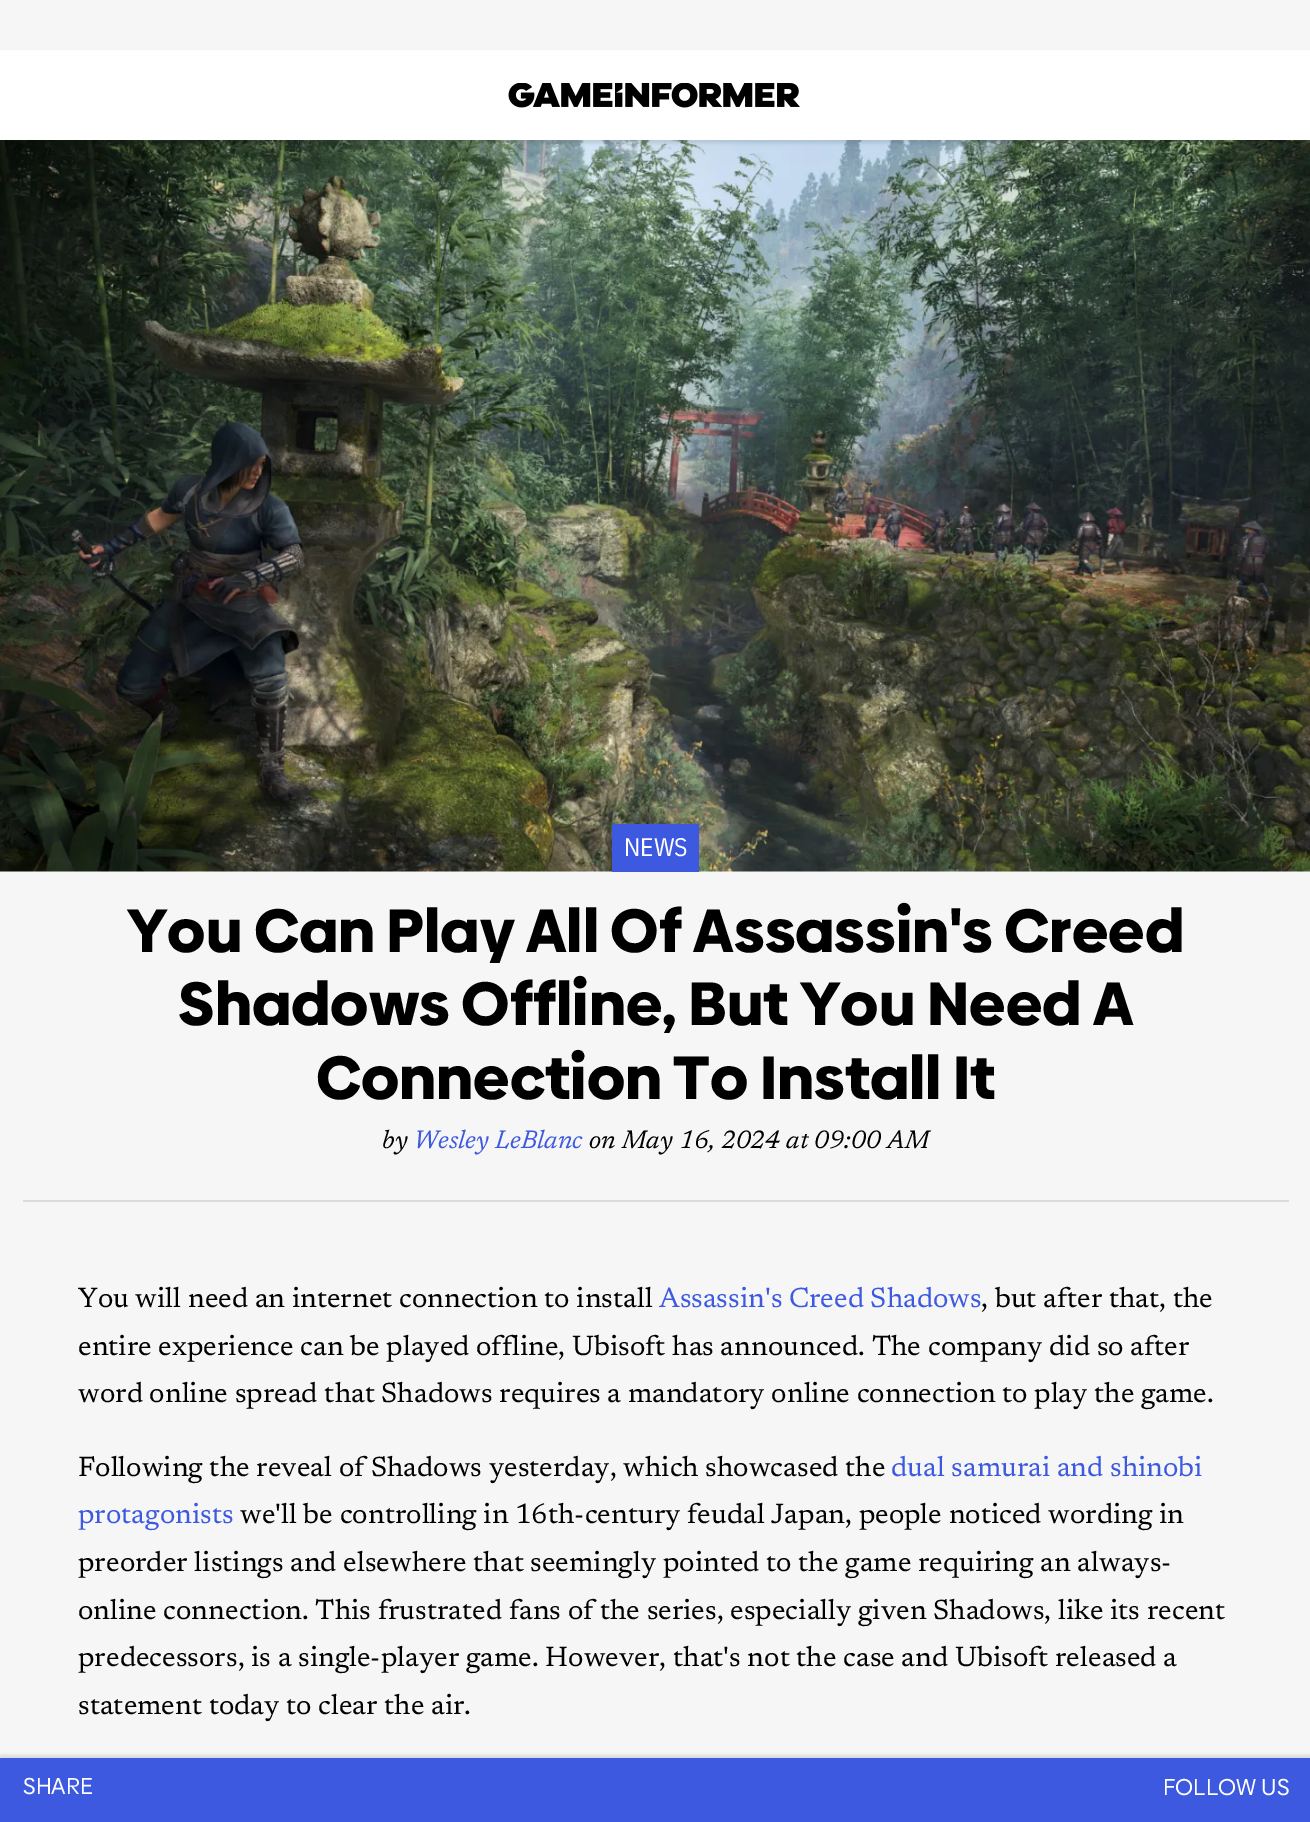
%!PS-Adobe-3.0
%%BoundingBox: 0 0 1310 1822
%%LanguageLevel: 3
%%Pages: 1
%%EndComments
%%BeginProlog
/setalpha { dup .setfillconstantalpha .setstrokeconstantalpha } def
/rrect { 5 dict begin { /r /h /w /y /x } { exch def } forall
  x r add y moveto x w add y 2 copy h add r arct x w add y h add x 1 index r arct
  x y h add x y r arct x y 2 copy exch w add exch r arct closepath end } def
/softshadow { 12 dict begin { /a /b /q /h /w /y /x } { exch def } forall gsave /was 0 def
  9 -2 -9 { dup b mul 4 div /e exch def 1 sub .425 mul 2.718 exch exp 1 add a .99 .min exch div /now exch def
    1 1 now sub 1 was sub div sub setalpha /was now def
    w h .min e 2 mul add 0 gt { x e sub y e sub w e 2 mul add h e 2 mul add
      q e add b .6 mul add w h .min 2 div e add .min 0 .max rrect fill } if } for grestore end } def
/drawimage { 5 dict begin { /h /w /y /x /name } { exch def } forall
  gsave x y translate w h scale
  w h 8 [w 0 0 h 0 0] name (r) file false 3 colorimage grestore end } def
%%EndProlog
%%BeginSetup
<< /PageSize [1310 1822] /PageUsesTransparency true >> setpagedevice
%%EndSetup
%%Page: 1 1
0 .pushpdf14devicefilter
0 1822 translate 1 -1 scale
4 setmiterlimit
0.965 setgray
0 0 1310 1822 rectfill
(images/2.raw) 0 140 1310 732 drawimage
0 setgray
0 53 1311 90 0 1.5 0.1 softshadow
1 setgray
0 50 1310 90 rectfill
(images/1.raw) 508 83 292 25 drawimage
0.235 0.349 0.878 setrgbcolor
612 824 87 48 rectfill
0.859 setgray
23 1200 1266 2 rectfill
0 setgray
0 1755 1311 65 0 1.5 0.1 softshadow
0.235 0.349 0.878 setrgbcolor
0 1758 1310 64 rectfill
/IBMPlexSansCondensed-Regular [25.5 0 0 -25.5 0 0] selectfont
1 setgray
624 856 moveto (NEWS) show
/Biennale-Black [61.25 0 0 -61.25 0 0] selectfont
0 setgray
127 952 moveto (You Can Play All Of Assassin's Creed) show
178 1025 moveto (Shadows Offline, But You Need A) show
316 1099 moveto (Connection To Install It) show
/Newsreader-Italic [25.5 0 0 -25.5 0 0] selectfont
382 1148 moveto (by) show
0.235 0.349 0.878 setrgbcolor
414 1148 moveto (Wesley LeBlanc) show
0 setgray
589 1148 moveto (on May 16, 2024 at 09:00 AM) show
/Newsreader-Regular [28.05 0 0 -28.05 0 0] selectfont
78 1307 moveto (You will need an internet connection to install) show
0.235 0.349 0.878 setrgbcolor
659 1307 moveto (Assassin's Creed Shadows) show
0 setgray
981 1307 moveto (, but after that, the) show
78 1355 moveto (entire experience can be played offline, Ubisoft has announced. The company did so after) show
78 1402 moveto (word online spread that Shadows requires a mandatory online connection to play the game.) show
78 1476 moveto (Following the reveal of Shadows yesterday, which showcased the) show
0.235 0.349 0.878 setrgbcolor
891 1476 moveto (dual samurai and shinobi) show
78 1523 moveto (protagonists) show
0 setgray
240 1523 moveto (we'll be controlling in 16th-century feudal Japan, people noticed wording in) show
78 1571 moveto (preorder listings and elsewhere that seemingly pointed to the game requiring an always-) show
78 1619 moveto (online connection. This frustrated fans of the series, especially given Shadows, like its recent) show
78 1666 moveto (predecessors, is a single-player game. However, that's not the case and Ubisoft released a) show
78 1714 moveto (statement today to clear the air.) show
/Biennale-Regular [23 0 0 -23 0 0] selectfont
1 setgray
23 1794 moveto (SHARE) show
1163 1795 moveto (FOLLOW US) show
.poppdf14devicefilter showpage
%%EOF
